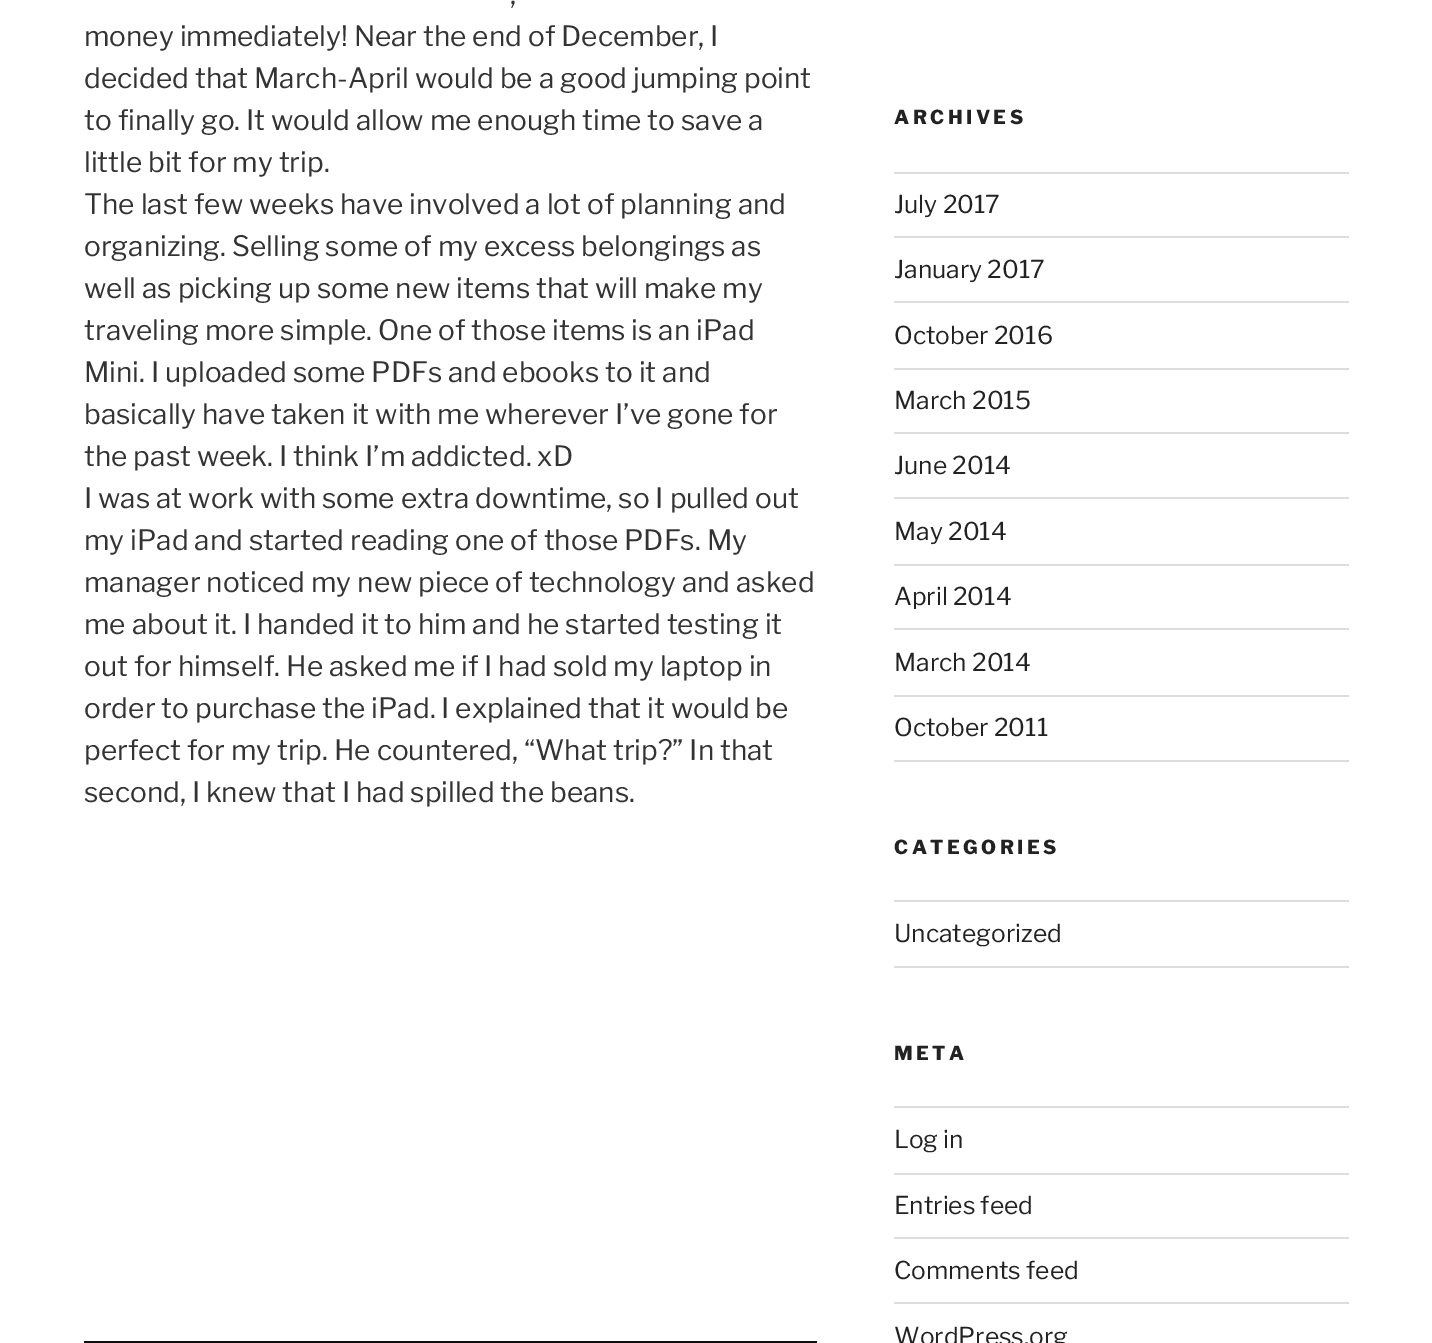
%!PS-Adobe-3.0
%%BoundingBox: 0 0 1432 1343
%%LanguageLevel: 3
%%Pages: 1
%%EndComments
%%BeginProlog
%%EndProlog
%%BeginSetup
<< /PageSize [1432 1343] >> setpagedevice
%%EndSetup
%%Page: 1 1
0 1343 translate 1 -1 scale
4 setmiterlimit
1 setgray
0 0 1432 1343 rectfill
0.059 setgray
84 1341 733 2 rectfill
0.867 setgray
894 172 455 2 rectfill
894 236 455 2 rectfill
894 301 455 2 rectfill
894 368 455 2 rectfill
894 432 455 2 rectfill
894 497 455 2 rectfill
894 564 455 2 rectfill
894 628 455 2 rectfill
894 695 455 2 rectfill
894 760 455 2 rectfill
894 900 455 2 rectfill
894 966 455 2 rectfill
894 1106 455 2 rectfill
894 1173 455 2 rectfill
894 1237 455 2 rectfill
894 1302 455 2 rectfill
/LibreFranklin-Regular [28 0 0 -28 0 0] selectfont
0.2 setgray
510 4 moveto (,) show
84 46 moveto (money immediately! Near the end of December, I) show
84 88 moveto (decided that March-April would be a good jumping point) show
84 130 moveto (to finally go. It would allow me enough time to save a) show
84 172 moveto (little bit for my trip.) show
84 214 moveto (The last few weeks have involved a lot of planning and) show
84 256 moveto (organizing. Selling some of my excess belongings as) show
84 298 moveto (well as picking up some new items that will make my) show
84 340 moveto (traveling more simple. One of those items is an iPad) show
84 382 moveto (Mini. I uploaded some PDFs and ebooks to it and) show
84 424 moveto (basically have taken it with me wherever I’ve gone for) show
84 466 moveto (the past week. I think I’m addicted. xD) show
84 508 moveto (I was at work with some extra downtime, so I pulled out) show
84 550 moveto (my iPad and started reading one of those PDFs. My) show
84 592 moveto (manager noticed my new piece of technology and asked) show
84 634 moveto (me about it. I handed it to him and he started testing it) show
84 676 moveto (out for himself. He asked me if I had sold my laptop in) show
84 718 moveto (order to purchase the iPad. I explained that it would be) show
84 760 moveto (perfect for my trip. He countered, “What trip?” In that) show
84 802 moveto (second, I knew that I had spilled the beans.) show
/LibreFranklin-ExtraBold [19.25 0 0 -19.25 0 0] selectfont
0.133 setgray
894 124 moveto 3.5 0 (ARCHIVES) ashow
/LibreFranklin-Regular [24.5 0 0 -24.5 0 0] selectfont
894 213 moveto (July 2017) show
894 278 moveto (January 2017) show
894 344 moveto (October 2016) show
894 409 moveto (March 2015) show
894 474 moveto (June 2014) show
894 540 moveto (May 2014) show
894 605 moveto (April 2014) show
894 671 moveto (March 2014) show
894 736 moveto (October 2011) show
/LibreFranklin-ExtraBold [19.25 0 0 -19.25 0 0] selectfont
894 854 moveto 3.5 0 (CATEGORIES) ashow
/LibreFranklin-Regular [24.5 0 0 -24.5 0 0] selectfont
894 942 moveto (Uncategorized) show
/LibreFranklin-ExtraBold [19.25 0 0 -19.25 0 0] selectfont
894 1060 moveto 3.5 0 (META) ashow
/LibreFranklin-Regular [24.5 0 0 -24.5 0 0] selectfont
894 1148 moveto (Log in) show
894 1214 moveto (Entries feed) show
894 1279 moveto (Comments feed) show
894 1345 moveto (WordPress.org) show
showpage
%%EOF
